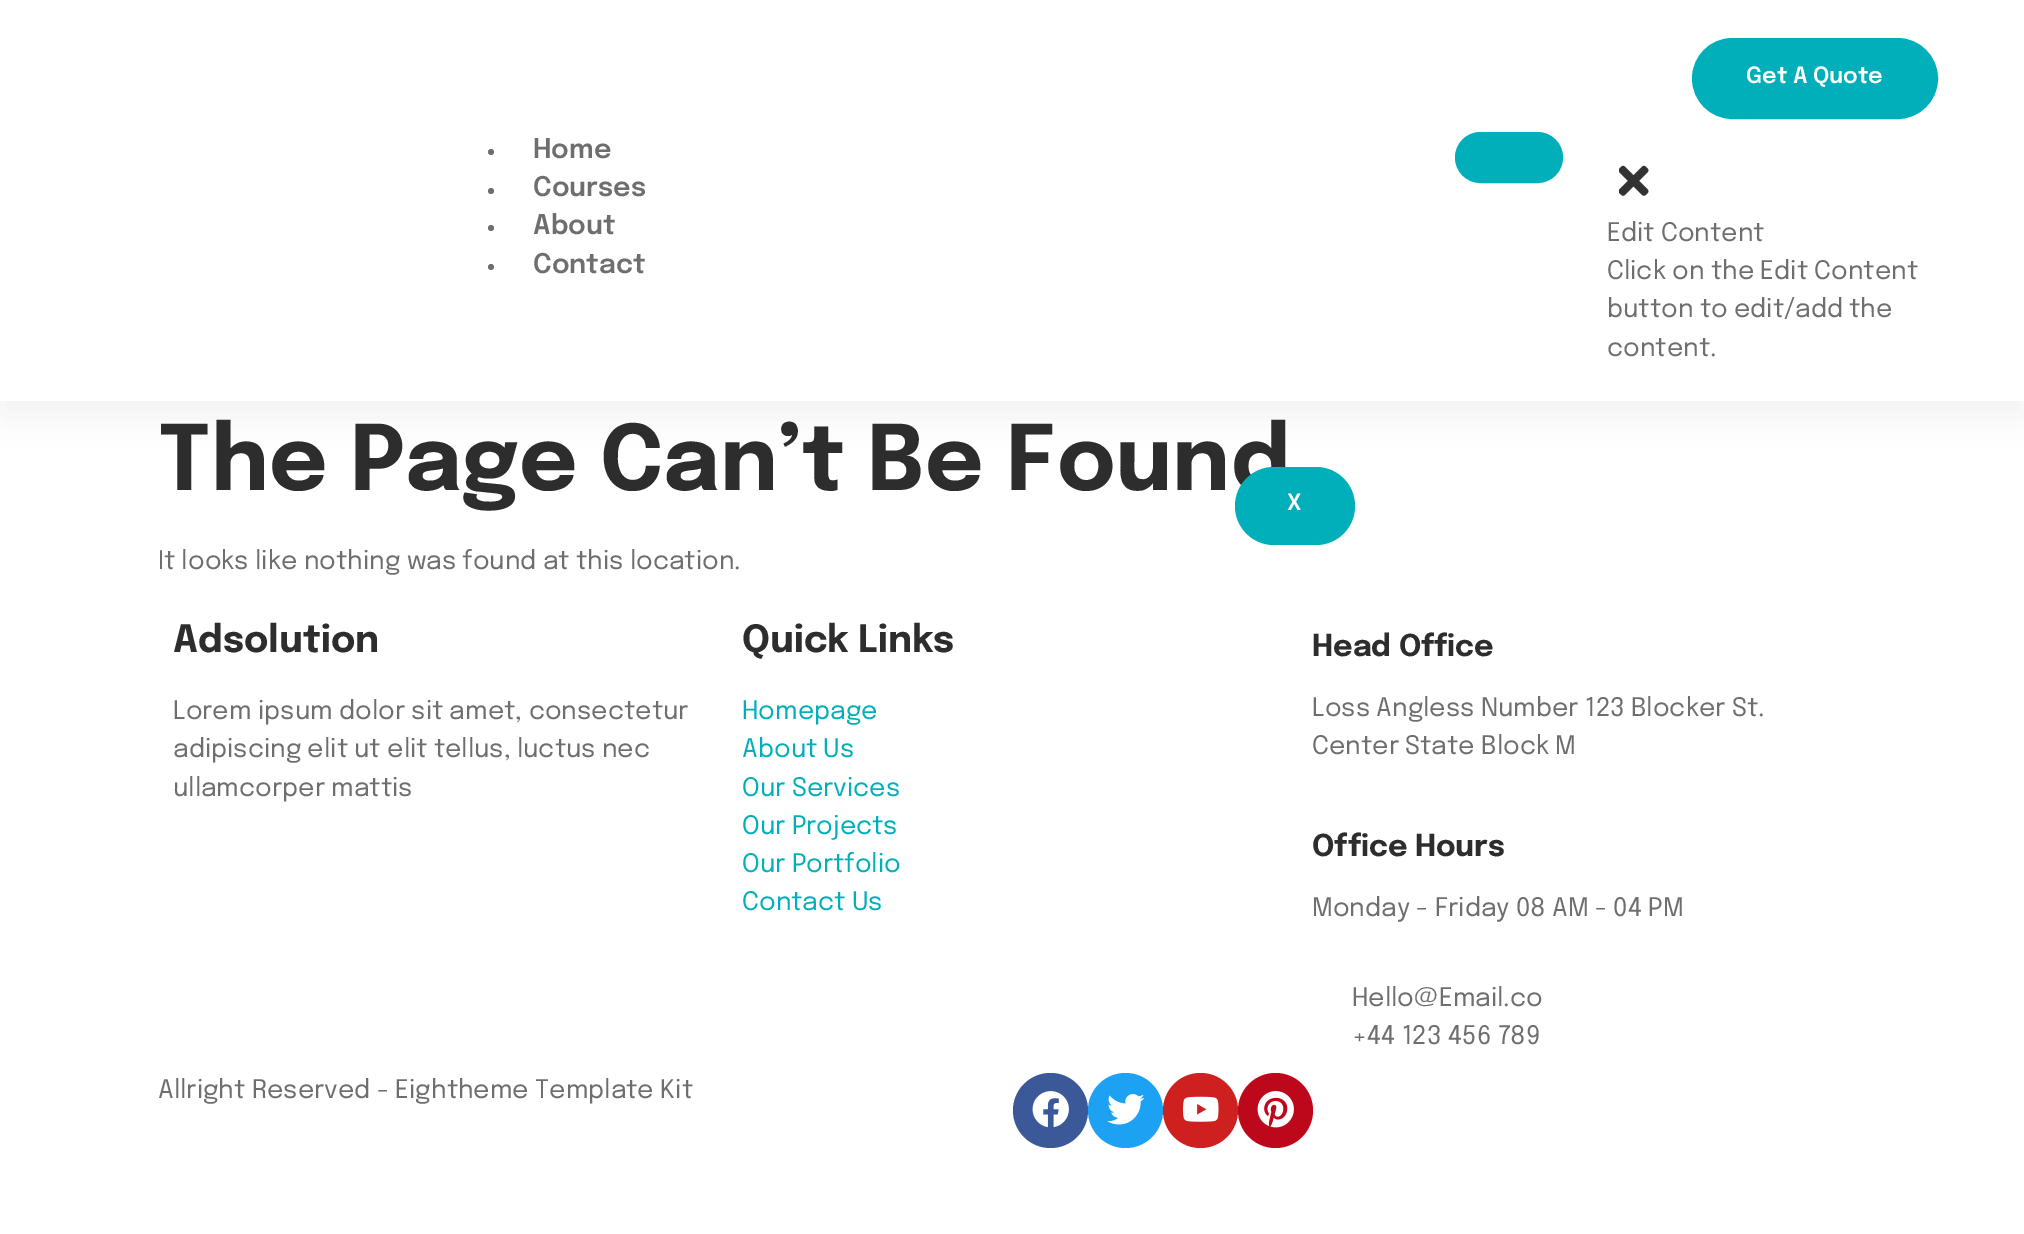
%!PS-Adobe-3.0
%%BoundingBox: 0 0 2024 1234
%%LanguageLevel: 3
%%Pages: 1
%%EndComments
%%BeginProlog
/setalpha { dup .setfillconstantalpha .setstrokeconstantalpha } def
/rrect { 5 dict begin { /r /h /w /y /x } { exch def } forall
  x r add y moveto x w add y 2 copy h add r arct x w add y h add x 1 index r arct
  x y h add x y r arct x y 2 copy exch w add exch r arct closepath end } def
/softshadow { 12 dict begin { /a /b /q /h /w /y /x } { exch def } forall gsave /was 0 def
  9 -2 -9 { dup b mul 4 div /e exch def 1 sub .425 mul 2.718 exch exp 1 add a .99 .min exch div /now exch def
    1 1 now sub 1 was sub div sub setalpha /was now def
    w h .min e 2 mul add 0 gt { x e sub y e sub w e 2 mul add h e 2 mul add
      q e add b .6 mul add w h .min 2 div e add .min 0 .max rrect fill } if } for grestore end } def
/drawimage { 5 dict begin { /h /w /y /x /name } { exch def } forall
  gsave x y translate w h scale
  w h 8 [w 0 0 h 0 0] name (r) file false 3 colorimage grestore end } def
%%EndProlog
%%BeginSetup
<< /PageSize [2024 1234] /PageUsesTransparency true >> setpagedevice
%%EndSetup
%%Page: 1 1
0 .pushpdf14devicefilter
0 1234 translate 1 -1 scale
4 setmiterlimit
1 setgray
0 0 2024 1234 rectfill
0 setgray
0 15 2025 401 0 19 0.05 softshadow
1 setgray
0 0 2024 401 rectfill
0.431 setgray
newpath 491 152 3 0 360 arc closepath fill
newpath 491 191 3 0 360 arc closepath fill
newpath 491 228 3 0 360 arc closepath fill
newpath 491 267 3 0 360 arc closepath fill
0 0.686 0.725 setrgbcolor
1456 133 106 49 24.5 rrect gsave fill grestore
2 setlinewidth
stroke
1693 39 244 79 39.5 rrect gsave fill grestore
stroke
(images/1.raw) 1619 165 30 31 drawimage
0.231 0.349 0.596 setrgbcolor
newpath 1050.5 1110.5 37.5 0 360 arc closepath fill
(images/2.raw) 1032 1091 37 37 drawimage
0.114 0.631 0.949 setrgbcolor
newpath 1125.5 1110.5 37.5 0 360 arc closepath fill
(images/3.raw) 1107 1094 38 31 drawimage
0.804 0.125 0.122 setrgbcolor
newpath 1200.5 1110.5 37.5 0 360 arc closepath fill
(images/4.raw) 1183 1096 36 26 drawimage
0.741 0.031 0.11 setrgbcolor
newpath 1275.5 1110.5 37.5 0 360 arc closepath fill
(images/5.raw) 1257 1091 37 37 drawimage
/Epilogue-SemiBold [27 0 0 -27 0 0] selectfont
0.431 setgray
533 158 moveto (Home) show
533 196 moveto (Courses) show
533 234 moveto (About) show
533 273 moveto (Contact) show
/Epilogue-SemiBold [22.5 0 0 -22.5 0 0] selectfont
1 setgray
1746 83 moveto (Get A Quote) show
/Epilogue-Regular [25.5 0 0 -25.5 0 0] selectfont
0.431 setgray
1607 241 moveto (Edit Content) show
1607 279 moveto (Click on the Edit Content) show
1607 317 moveto (button to edit/add the) show
1607 356 moveto (content.) show
/Epilogue-Bold [90 0 0 -90 0 0] selectfont
0.176 setgray
158 490 moveto (The Page Can’t Be Found) show
0 0.686 0.725 setrgbcolor
1235 467 120 78 39 rrect fill
/Epilogue-SemiBold [22.5 0 0 -22.5 0 0] selectfont
1 setgray
1287 510 moveto (X) show
/Epilogue-Regular [25.5 0 0 -25.5 0 0] selectfont
0.431 setgray
158 569 moveto (It looks like nothing was found at this location.) show
/Epilogue-Bold [37.5 0 0 -37.5 0 0] selectfont
0.176 setgray
173 652 moveto (Adsolution) show
/Epilogue-Regular [25.5 0 0 -25.5 0 0] selectfont
0.431 setgray
173 719 moveto (Lorem ipsum dolor sit amet, consectetur) show
173 757 moveto (adipiscing elit ut elit tellus, luctus nec) show
173 796 moveto (ullamcorper mattis) show
/Epilogue-Bold [37.5 0 0 -37.5 0 0] selectfont
0.176 setgray
742 652 moveto (Quick Links) show
/Epilogue-Regular [25.5 0 0 -25.5 0 0] selectfont
0 0.686 0.725 setrgbcolor
742 719 moveto (Homepage) show
742 757 moveto (About Us) show
742 796 moveto (Our Services) show
742 834 moveto (Our Projects) show
742 872 moveto (Our Portfolio) show
742 910 moveto (Contact Us) show
/Epilogue-Bold [30 0 0 -30 0 0] selectfont
0.176 setgray
1312 656 moveto (Head Office) show
/Epilogue-Regular [25.5 0 0 -25.5 0 0] selectfont
0.431 setgray
1312 716 moveto (Loss Angless Number 123 Blocker St.) show
1312 754 moveto (Center State Block M) show
/Epilogue-Bold [30 0 0 -30 0 0] selectfont
0.176 setgray
1312 856 moveto (Office Hours) show
/Epilogue-Regular [25.5 0 0 -25.5 0 0] selectfont
0.431 setgray
1312 916 moveto (Monday - Friday 08 AM - 04 PM) show
1352 1006 moveto (Hello@Email.co) show
1352 1044 moveto (+44 123 456 789) show
158 1098 moveto (Allright Reserved - Eightheme Template Kit) show
.poppdf14devicefilter showpage
%%EOF
